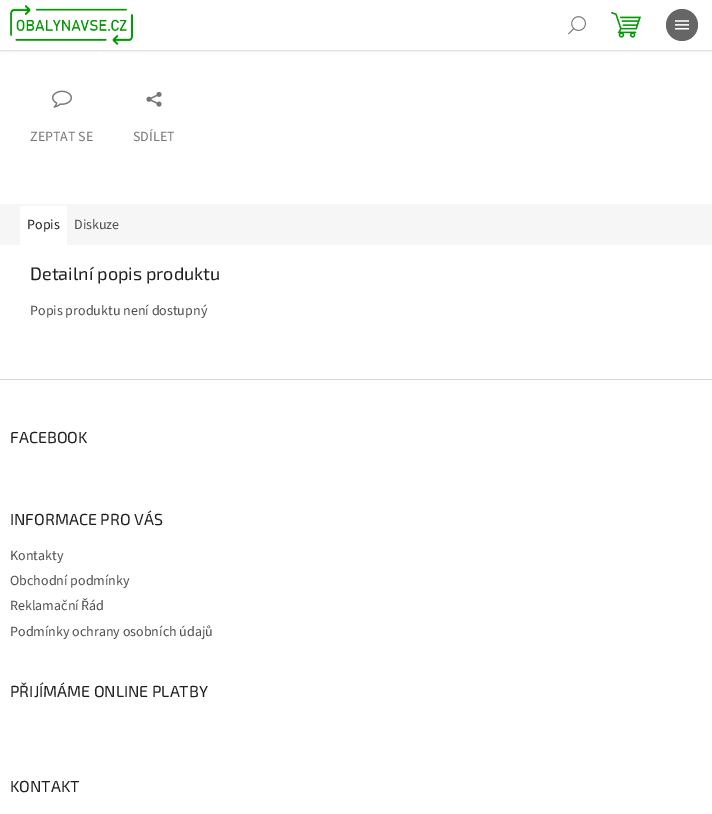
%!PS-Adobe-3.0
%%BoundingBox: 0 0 712 814
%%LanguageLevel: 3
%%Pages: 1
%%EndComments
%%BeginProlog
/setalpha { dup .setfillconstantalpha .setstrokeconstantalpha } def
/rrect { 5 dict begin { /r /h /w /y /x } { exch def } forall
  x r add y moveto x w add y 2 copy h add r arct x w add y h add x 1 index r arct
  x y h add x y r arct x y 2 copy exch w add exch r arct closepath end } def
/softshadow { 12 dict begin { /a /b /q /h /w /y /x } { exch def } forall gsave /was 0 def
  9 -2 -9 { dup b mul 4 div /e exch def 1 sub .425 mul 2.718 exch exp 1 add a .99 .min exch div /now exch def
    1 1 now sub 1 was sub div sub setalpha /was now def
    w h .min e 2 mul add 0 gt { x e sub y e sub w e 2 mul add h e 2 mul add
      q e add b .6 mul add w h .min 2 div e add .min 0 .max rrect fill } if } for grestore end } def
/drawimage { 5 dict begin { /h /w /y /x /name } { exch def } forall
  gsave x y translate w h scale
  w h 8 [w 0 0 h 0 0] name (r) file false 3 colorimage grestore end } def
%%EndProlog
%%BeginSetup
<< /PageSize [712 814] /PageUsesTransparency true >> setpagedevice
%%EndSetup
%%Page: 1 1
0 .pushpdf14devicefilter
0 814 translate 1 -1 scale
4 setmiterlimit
1 setgray
0 0 712 814 rectfill
0 setgray
0 1 712 50 0 1 0.16 softshadow
1 setgray
0 0 712 50 rectfill
(images/1.raw) 568 16 18 19 drawimage
0.4 setgray
newpath 682 25 16 0 360 arc closepath fill
(images/2.raw) 675 20 14 10 drawimage
(images/3.raw) 10 5 123 40 drawimage
(images/4.raw) 611 12 30 26 drawimage
(images/5.raw) 52 90 20 18 drawimage
(images/6.raw) 146 91 16 16 drawimage
0.965 setgray
0 204 712 41 rectfill
1 setgray
20 206 47 39 rectfill
0.855 setgray
0 379 712 1 rectfill
/SourceSans3-Regular [14 0 0 -14 0 0] selectfont
0.463 setgray
30 141 moveto (ZEPTAT SE) show
133 141 moveto (SDÍLET) show
0.122 setgray
27 229 moveto (Popis) show
0.302 setgray
74 229 moveto (Diskuze) show
/Exo2-Regular [18 0 0 -18 0 0] selectfont
0.122 setgray
30 280 moveto (Detailní popis produktu) show
/SourceSans3-Regular [14 0 0 -14 0 0] selectfont
0.302 setgray
30 315 moveto (Popis produktu není dostupný) show
/Exo2-Regular [16 0 0 -16 0 0] selectfont
0.122 setgray
10 443 moveto (FACEBOOK) show
10 525 moveto (INFORMACE PRO VÁS) show
/SourceSans3-Regular [14 0 0 -14 0 0] selectfont
0.302 setgray
10 560 moveto (Kontakty) show
10 585 moveto (Obchodní podmínky) show
10 610 moveto (Reklamační Řád) show
10 636 moveto (Podmínky ochrany osobních údajů) show
/Exo2-Regular [16 0 0 -16 0 0] selectfont
0.122 setgray
10 697 moveto (PŘIJÍMÁME ONLINE PLATBY) show
10 792 moveto (KONTAKT) show
.poppdf14devicefilter showpage
%%EOF
